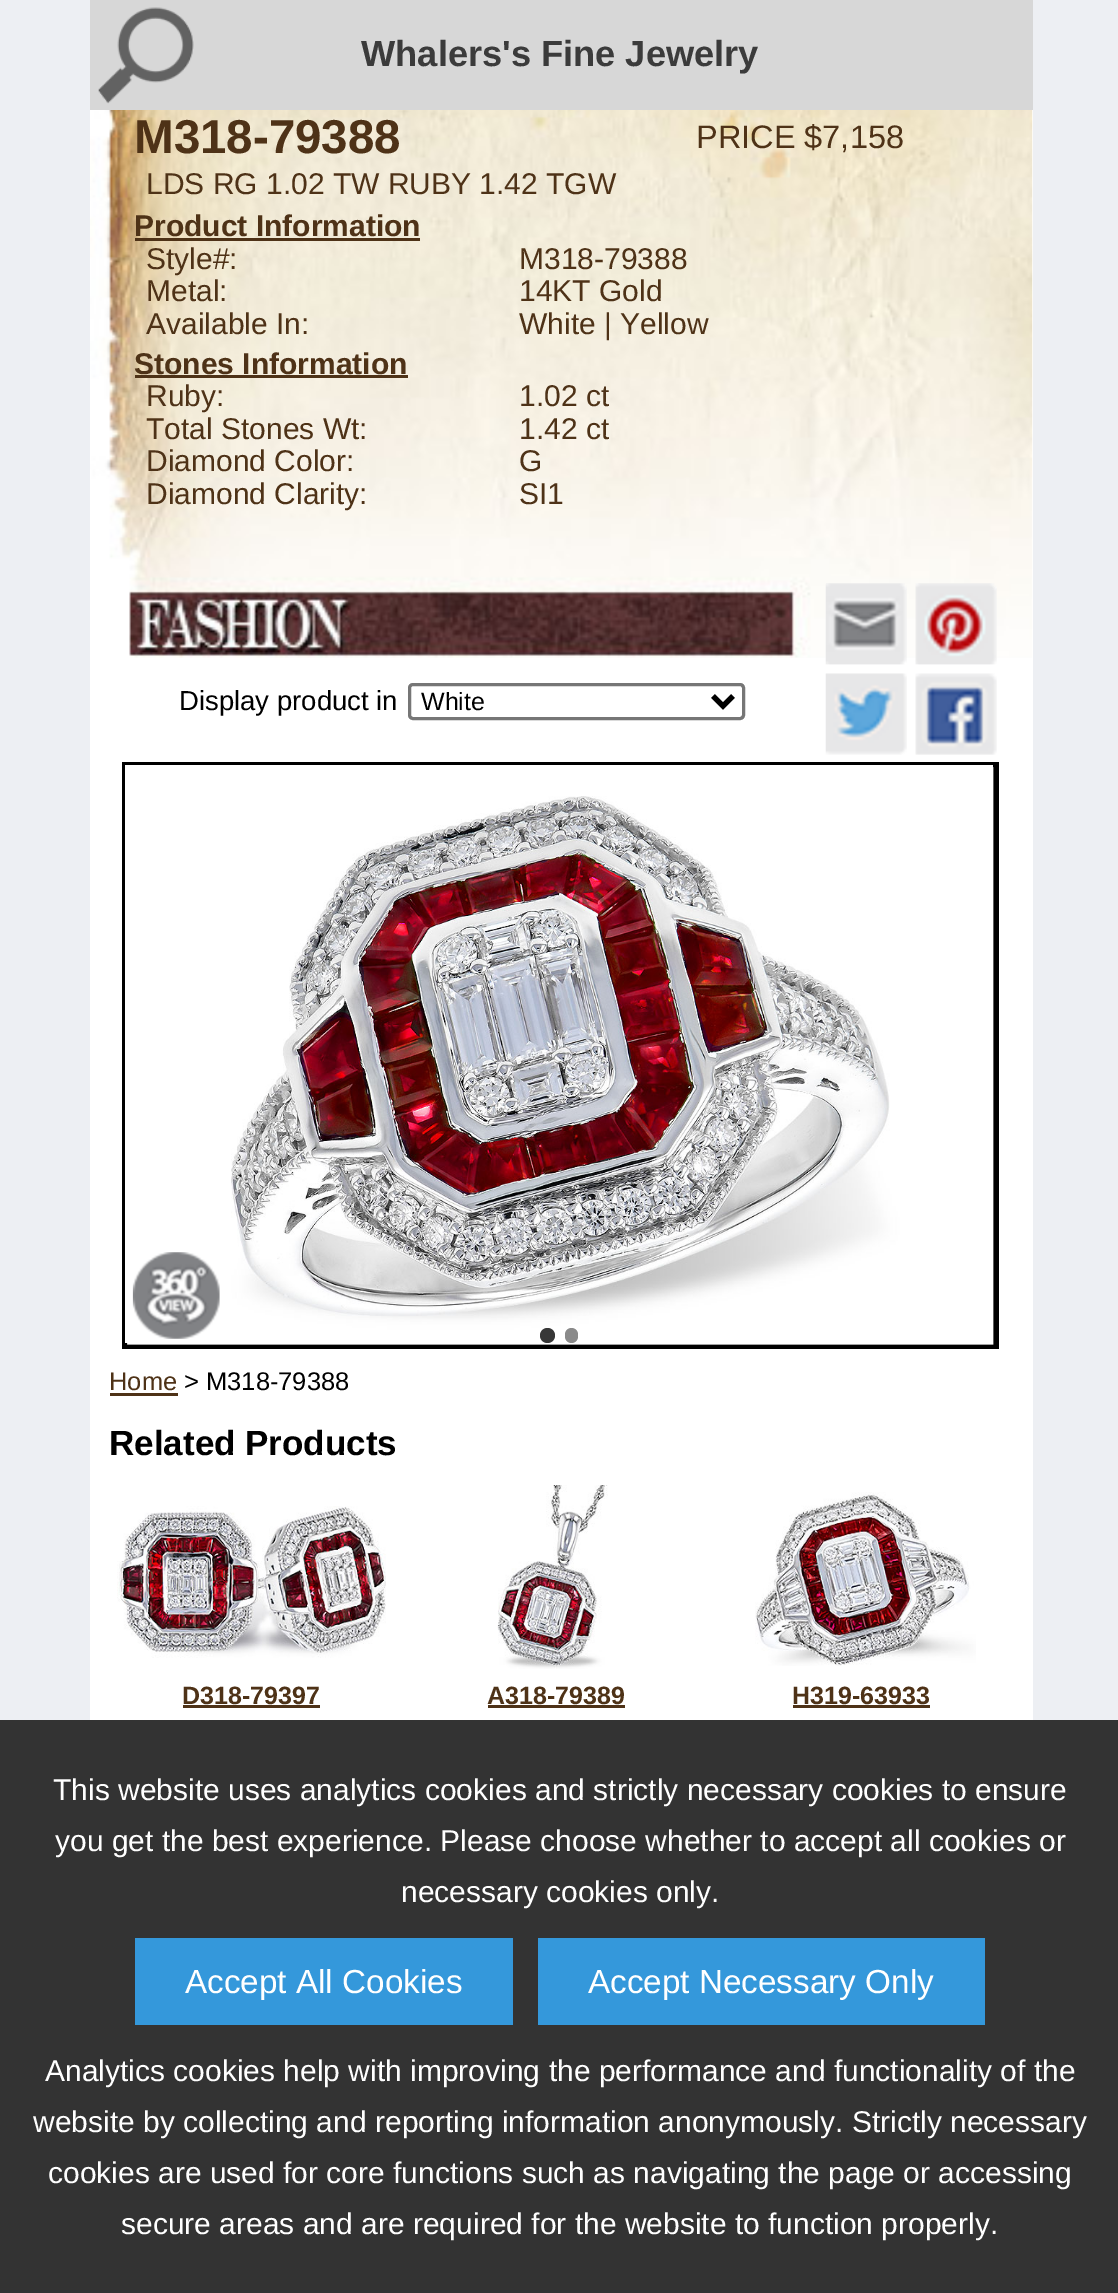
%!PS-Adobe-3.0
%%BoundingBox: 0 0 1118 2293
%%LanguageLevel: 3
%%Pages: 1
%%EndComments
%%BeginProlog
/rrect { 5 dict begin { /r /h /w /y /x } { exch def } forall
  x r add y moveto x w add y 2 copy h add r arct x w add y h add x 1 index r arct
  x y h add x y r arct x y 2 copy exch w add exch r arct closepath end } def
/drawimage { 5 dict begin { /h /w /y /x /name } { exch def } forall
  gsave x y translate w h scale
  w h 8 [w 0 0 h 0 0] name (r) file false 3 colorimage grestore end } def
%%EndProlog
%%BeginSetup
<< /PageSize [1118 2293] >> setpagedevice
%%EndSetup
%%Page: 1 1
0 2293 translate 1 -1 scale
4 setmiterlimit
0.929 0.937 0.953 setrgbcolor
0 0 1118 2293 rectfill
0.843 setgray
90 0 943 110 rectfill
(images/1.raw) 98 7 96 97 drawimage
1 setgray
90 110 943 1610 rectfill
(images/2.raw) 90 110 943 548 drawimage
0.306 0.196 0.09 setrgbcolor
135 238 285 3 rectfill
135 375 273 3 rectfill
0.463 setgray
3 setlinewidth
409.5 684.5 334 34 3.5 rrect stroke
0 setgray
5 setlinewidth
newpath 713 696 moveto 723 706 lineto 733 696 lineto stroke
122 762 877 587 rectfill
(images/3.raw) 825 583 82 82 drawimage
(images/4.raw) 915 583 82 82 drawimage
(images/5.raw) 825 673 82 82 drawimage
(images/6.raw) 915 673 82 82 drawimage
1 setgray
125 765 868 578 rectfill
(images/7.raw) 127 767 867 578 drawimage
0.216 setgray
newpath 547.5 1335.5 7.5 0 360 arc closepath fill
0.541 setgray
565 1328 13 15 6.5 rrect fill
(images/8.raw) 132 1252 88 87 drawimage
0.306 0.196 0.09 setrgbcolor
110 1393 68 3 rectfill
(images/9.raw) 117 1506 269 152 drawimage
183 1705 137 3 rectfill
(images/10.raw) 497 1485 111 184 drawimage
488 1705 137 3 rectfill
(images/11.raw) 755 1492 221 174 drawimage
793 1705 137 3 rectfill
0.2 setgray
0 1720 1118 573 rectfill
0.204 0.596 0.859 setrgbcolor
135 1938 378 87 rectfill
538 1938 447 87 rectfill
/LiberationSans-Bold [36.25 0 0 -36.25 0 0] selectfont
0.231 setgray
361 66 moveto (Whalers's Fine Jewelry) show
/LiberationSans-Bold [47.5 0 0 -47.5 0 0] selectfont
0.306 0.196 0.09 setrgbcolor
134 153 moveto (M318-79388) show
/LiberationSans-Regular [32.5 0 0 -32.5 0 0] selectfont
696 148 moveto (PRICE $7,158) show
/LiberationSans-Regular [30 0 0 -30 0 0] selectfont
146 194 moveto (LDS RG 1.02 TW RUBY 1.42 TGW) show
/LiberationSans-Bold [30 0 0 -30 0 0] selectfont
134 236 moveto (Product Information) show
/LiberationSans-Regular [30 0 0 -30 0 0] selectfont
146 269 moveto (Style#:) show
519 269 moveto (M318-79388) show
146 301 moveto (Metal:) show
519 301 moveto (14KT Gold) show
146 334 moveto (Available In:) show
519 334 moveto (White | Yellow) show
/LiberationSans-Bold [30 0 0 -30 0 0] selectfont
134 374 moveto (Stones Information) show
/LiberationSans-Regular [30 0 0 -30 0 0] selectfont
146 406 moveto (Ruby:) show
519 406 moveto (1.02 ct) show
146 439 moveto (Total Stones Wt:) show
519 439 moveto (1.42 ct) show
146 471 moveto (Diamond Color:) show
519 471 moveto (G) show
146 504 moveto (Diamond Clarity:) show
519 504 moveto (SI1) show
/LiberationSans-Regular [27.5 0 0 -27.5 0 0] selectfont
0 setgray
179 710 moveto (Display product in) show
/LiberationSans-Regular [25 0 0 -25 0 0] selectfont
421 710 moveto (White) show
/LiberationSans-Regular [25.5 0 0 -25.5 0 0] selectfont
0.306 0.196 0.09 setrgbcolor
109 1390 moveto (Home) show
0 setgray
184 1390 moveto (> M318-79388) show
/LiberationSans-Bold [35 0 0 -35 0 0] selectfont
109 1455 moveto (Related Products) show
/LiberationSans-Bold [25 0 0 -25 0 0] selectfont
0.306 0.196 0.09 setrgbcolor
182 1704 moveto (D318-79397) show
487 1704 moveto (A318-79389) show
792 1704 moveto (H319-63933) show
/LiberationSans-Regular [30 0 0 -30 0 0] selectfont
1 setgray
53 1800 moveto (This website uses analytics cookies and strictly necessary cookies to ensure) show
55 1851 moveto (you get the best experience. Please choose whether to accept all cookies or) show
401 1902 moveto (necessary cookies only.) show
/LiberationSans-Regular [33.25 0 0 -33.25 0 0] selectfont
185 1993 moveto (Accept All Cookies) show
588 1993 moveto (Accept Necessary Only) show
/LiberationSans-Regular [30 0 0 -30 0 0] selectfont
45 2081 moveto (Analytics cookies help with improving the performance and functionality of the) show
33 2132 moveto (website by collecting and reporting information anonymously. Strictly necessary) show
48 2183 moveto (cookies are used for core functions such as navigating the page or accessing) show
121 2234 moveto (secure areas and are required for the website to function properly.) show
showpage
%%EOF
